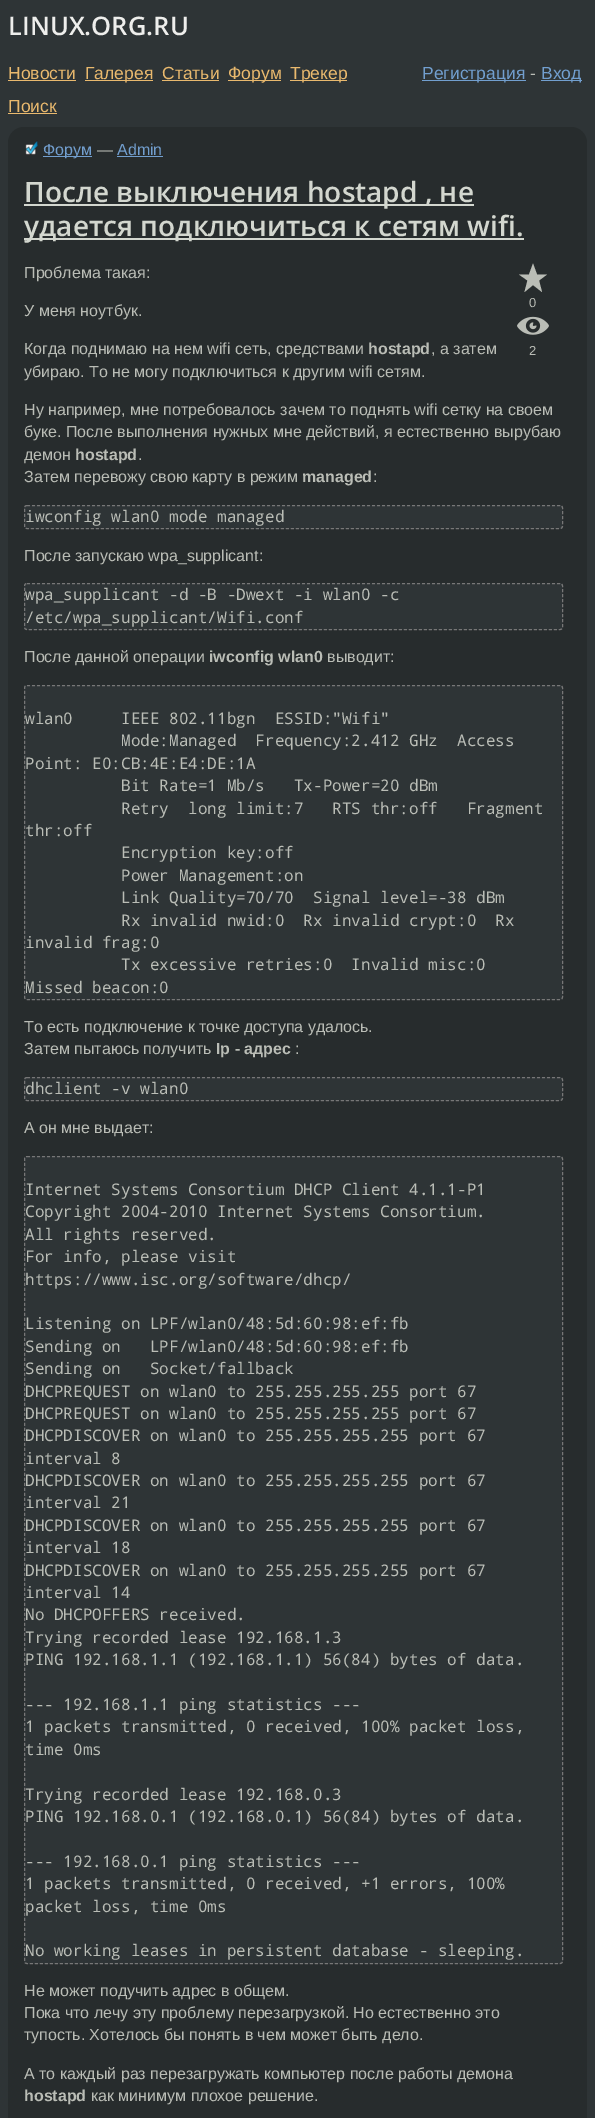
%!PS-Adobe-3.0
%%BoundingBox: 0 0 595 2118
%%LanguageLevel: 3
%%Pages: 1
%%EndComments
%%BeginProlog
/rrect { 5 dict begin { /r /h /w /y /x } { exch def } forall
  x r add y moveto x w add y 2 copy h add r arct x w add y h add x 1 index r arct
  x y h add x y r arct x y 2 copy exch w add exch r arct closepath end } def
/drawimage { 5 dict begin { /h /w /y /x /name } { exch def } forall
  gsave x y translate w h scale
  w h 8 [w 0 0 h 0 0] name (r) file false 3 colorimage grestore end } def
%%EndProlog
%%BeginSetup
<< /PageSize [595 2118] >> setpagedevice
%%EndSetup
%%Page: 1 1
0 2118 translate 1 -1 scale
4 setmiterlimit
0.18 0.204 0.212 setrgbcolor
0 0 595 2118 rectfill
0.914 0.725 0.431 setrgbcolor
8 80 68 1 rectfill
85 80 68 1 rectfill
162 80 57 1 rectfill
228 80 53 1 rectfill
290 80 57 1 rectfill
8 113 49 1 rectfill
0.447 0.624 0.812 setrgbcolor
422 80 104 1 rectfill
541 80 41 1 rectfill
0.153 0.173 0.176 setrgbcolor
8 127 579 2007 16 rrect fill
(images/1.raw) 25 140 13 15 drawimage
0.447 0.624 0.812 setrgbcolor
43 156 49 1 rectfill
117 156 46 1 rectfill
0.827 0.843 0.812 setrgbcolor
24 204 450 2 rectfill
24 238 500 2 rectfill
0.18 0.204 0.212 setrgbcolor
24 505 539 24 3 rrect fill
0.467 setgray
[3 2] 0 setdash
newpath 27 505.5 moveto 560 505.5 lineto 561.5 505.5 562.5 506.5 562.5 508 curveto 562.5 526 lineto 562.5 527.5 561.5 528.5 560 528.5 curveto 27 528.5 lineto 25.5 528.5 24.5 527.5 24.5 526 curveto 24.5 508 lineto 24.5 506.5 25.5 505.5 27 505.5 curveto closepath stroke
0.18 0.204 0.212 setrgbcolor
24 583 539 47 3 rrect fill
0.467 setgray
newpath 27 583.5 moveto 560 583.5 lineto 561.5 583.5 562.5 584.5 562.5 586 curveto 562.5 627 lineto 562.5 628.5 561.5 629.5 560 629.5 curveto 27 629.5 lineto 25.5 629.5 24.5 628.5 24.5 627 curveto 24.5 586 lineto 24.5 584.5 25.5 583.5 27 583.5 curveto closepath stroke
0.18 0.204 0.212 setrgbcolor
24 685 539 315 3 rrect fill
0.467 setgray
newpath 27 685.5 moveto 560 685.5 lineto 561.5 685.5 562.5 686.5 562.5 688 curveto 562.5 997 lineto 562.5 998.5 561.5 999.5 560 999.5 curveto 27 999.5 lineto 25.5 999.5 24.5 998.5 24.5 997 curveto 24.5 688 lineto 24.5 686.5 25.5 685.5 27 685.5 curveto closepath stroke
0.18 0.204 0.212 setrgbcolor
24 1077 539 24 3 rrect fill
0.467 setgray
newpath 27 1077.5 moveto 560 1077.5 lineto 561.5 1077.5 562.5 1078.5 562.5 1080 curveto 562.5 1098 lineto 562.5 1099.5 561.5 1100.5 560 1100.5 curveto 27 1100.5 lineto 25.5 1100.5 24.5 1099.5 24.5 1098 curveto 24.5 1080 lineto 24.5 1078.5 25.5 1077.5 27 1077.5 curveto closepath stroke
0.18 0.204 0.212 setrgbcolor
24 1156 539 808 3 rrect fill
0.467 setgray
newpath 27 1156.5 moveto 560 1156.5 lineto 561.5 1156.5 562.5 1157.5 562.5 1159 curveto 562.5 1961 lineto 562.5 1962.5 561.5 1963.5 560 1963.5 curveto 27 1963.5 lineto 25.5 1963.5 24.5 1962.5 24.5 1961 curveto 24.5 1159 lineto 24.5 1157.5 25.5 1156.5 27 1156.5 curveto closepath stroke
0.729 0.741 0.714 setrgbcolor
newpath 533 263.5 moveto 537 274.5 lineto 547 274.5 lineto 539 280.5 lineto 542 292 lineto 533 285 lineto 524.5 292 lineto 527.5 280.5 lineto 519 274.5 lineto 529 274.5 lineto closepath fill
(images/2.raw) 517 316 32 19 drawimage
/OpenSans-SemiBold [25.5 0 0 -25.5 0 0] selectfont
0.933 0.933 0.925 setrgbcolor
8 35 moveto (LINUX.ORG.RU) show
/LiberationSans-Regular [17.5 0 0 -17.5 0 0] selectfont
0.914 0.725 0.431 setrgbcolor
8 79 moveto (Новости) show
85 79 moveto (Галерея) show
162 79 moveto (Статьи) show
228 79 moveto (Форум) show
290 79 moveto (Трекер) show
8 112 moveto (Поиск) show
0.447 0.624 0.812 setrgbcolor
422 79 moveto (Регистрация) show
0.729 0.741 0.714 setrgbcolor
530 79 moveto (-) show
0.447 0.624 0.812 setrgbcolor
541 79 moveto (Вход) show
/LiberationSans-Regular [16 0 0 -16 0 0] selectfont
43 155 moveto (Форум) show
0.729 0.741 0.714 setrgbcolor
97 155 moveto (—) show
0.447 0.624 0.812 setrgbcolor
117 155 moveto (Admin) show
/OpenSans-SemiBold [28 0 0 -28 0 0] selectfont
0.827 0.843 0.812 setrgbcolor
24 202 moveto (После выключения hostapd , не) show
24 236 moveto (удается подключиться к сетям wifi.) show
/LiberationSans-Regular [16 0 0 -16 0 0] selectfont
0.729 0.741 0.714 setrgbcolor
24 278 moveto (Проблема такая:) show
24 316 moveto (У меня ноутбук.) show
24 354 moveto (Когда поднимаю на нем wifi сеть, средствами) show
/LiberationSans-Bold [16 0 0 -16 0 0] selectfont
368 354 moveto (hostapd) show
/LiberationSans-Regular [16 0 0 -16 0 0] selectfont
431 354 moveto (, а затем) show
24 377 moveto (убираю. То не могу подключиться к другим wifi сетям.) show
24 415 moveto (Ну например, мне потребовалось зачем то поднять wifi сетку на своем) show
24 437 moveto (буке. После выполнения нужных мне действий, я естественно вырубаю) show
24 460 moveto (демон) show
/LiberationSans-Bold [16 0 0 -16 0 0] selectfont
75 460 moveto (hostapd) show
/LiberationSans-Regular [16 0 0 -16 0 0] selectfont
138 460 moveto (.) show
24 482 moveto (Затем перевожу свою карту в режим) show
/LiberationSans-Bold [16 0 0 -16 0 0] selectfont
302 482 moveto (managed) show
/LiberationSans-Regular [16 0 0 -16 0 0] selectfont
373 482 moveto (:) show
/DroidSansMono-Regular [16 0 0 -16 0 0] selectfont
25 522 moveto (iwconfig wlan0 mode managed) show
/LiberationSans-Regular [16 0 0 -16 0 0] selectfont
24 561 moveto (После запускаю wpa_supplicant:) show
/DroidSansMono-Regular [16 0 0 -16 0 0] selectfont
25 600 moveto (wpa_supplicant -d -B -Dwext -i wlan0 -c) show
25 623 moveto (/etc/wpa_supplicant/Wifi.conf) show
/LiberationSans-Regular [16 0 0 -16 0 0] selectfont
24 662 moveto (После данной операции) show
/LiberationSans-Bold [16 0 0 -16 0 0] selectfont
209 662 moveto (iwconfig wlan0) show
/LiberationSans-Regular [16 0 0 -16 0 0] selectfont
327 662 moveto (выводит:) show
/DroidSansMono-Regular [16 0 0 -16 0 0] selectfont
25 724 moveto (wlan0     IEEE 802.11bgn  ESSID:"Wifi") show
121 746 moveto (Mode:Managed  Frequency:2.412 GHz  Access) show
25 769 moveto (Point: E0:CB:4E:E4:DE:1A) show
121 791 moveto (Bit Rate=1 Mb/s   Tx-Power=20 dBm) show
121 814 moveto (Retry  long limit:7   RTS thr:off   Fragment) show
25 836 moveto (thr:off) show
121 858 moveto (Encryption key:off) show
121 881 moveto (Power Management:on) show
121 903 moveto (Link Quality=70/70  Signal level=-38 dBm) show
121 926 moveto (Rx invalid nwid:0  Rx invalid crypt:0  Rx) show
25 948 moveto (invalid frag:0) show
121 970 moveto (Tx excessive retries:0  Invalid misc:0) show
25 993 moveto (Missed beacon:0) show
/LiberationSans-Regular [16 0 0 -16 0 0] selectfont
24 1032 moveto (То есть подключение к точке доступа удалось.) show
24 1054 moveto (Затем пытаюсь получить) show
/LiberationSans-Bold [16 0 0 -16 0 0] selectfont
216 1054 moveto (Ip - адрес) show
/LiberationSans-Regular [16 0 0 -16 0 0] selectfont
295 1054 moveto (:) show
/DroidSansMono-Regular [16 0 0 -16 0 0] selectfont
25 1094 moveto (dhclient -v wlan0) show
/LiberationSans-Regular [16 0 0 -16 0 0] selectfont
24 1133 moveto (А он мне выдает:) show
/DroidSansMono-Regular [16 0 0 -16 0 0] selectfont
25 1195 moveto (Internet Systems Consortium DHCP Client 4.1.1-P1) show
25 1217 moveto (Copyright 2004-2010 Internet Systems Consortium.) show
25 1240 moveto (All rights reserved.) show
25 1262 moveto (For info, please visit) show
25 1285 moveto (https://www.isc.org/software/dhcp/) show
25 1329 moveto (Listening on LPF/wlan0/48:5d:60:98:ef:fb) show
25 1352 moveto (Sending on   LPF/wlan0/48:5d:60:98:ef:fb) show
25 1374 moveto (Sending on   Socket/fallback) show
25 1397 moveto (DHCPREQUEST on wlan0 to 255.255.255.255 port 67) show
25 1419 moveto (DHCPREQUEST on wlan0 to 255.255.255.255 port 67) show
25 1441 moveto (DHCPDISCOVER on wlan0 to 255.255.255.255 port 67) show
25 1464 moveto (interval 8) show
25 1486 moveto (DHCPDISCOVER on wlan0 to 255.255.255.255 port 67) show
25 1508 moveto (interval 21) show
25 1531 moveto (DHCPDISCOVER on wlan0 to 255.255.255.255 port 67) show
25 1553 moveto (interval 18) show
25 1576 moveto (DHCPDISCOVER on wlan0 to 255.255.255.255 port 67) show
25 1598 moveto (interval 14) show
25 1620 moveto (No DHCPOFFERS received.) show
25 1643 moveto (Trying recorded lease 192.168.1.3) show
25 1665 moveto (PING 192.168.1.1 \(192.168.1.1\) 56\(84\) bytes of data.) show
25 1710 moveto (--- 192.168.1.1 ping statistics ---) show
25 1732 moveto (1 packets transmitted, 0 received, 100% packet loss,) show
25 1755 moveto (time 0ms) show
25 1800 moveto (Trying recorded lease 192.168.0.3) show
25 1822 moveto (PING 192.168.0.1 \(192.168.0.1\) 56\(84\) bytes of data.) show
25 1867 moveto (--- 192.168.0.1 ping statistics ---) show
25 1889 moveto (1 packets transmitted, 0 received, +1 errors, 100%) show
25 1912 moveto (packet loss, time 0ms) show
25 1956 moveto (No working leases in persistent database - sleeping.) show
/LiberationSans-Regular [16 0 0 -16 0 0] selectfont
24 1996 moveto (Не может подучить адрес в общем.) show
24 2018 moveto (Пока что лечу эту проблему перезагрузкой. Но естественно это) show
24 2040 moveto (тупость. Хотелось бы понять в чем может быть дело.) show
24 2079 moveto (А то каждый раз перезагружать компьютер после работы демона) show
/LiberationSans-Bold [16 0 0 -16 0 0] selectfont
24 2101 moveto (hostapd) show
/LiberationSans-Regular [16 0 0 -16 0 0] selectfont
91 2101 moveto (как минимум плохое решение.) show
/LiberationSans-Regular [13 0 0 -13 0 0] selectfont
529 307 moveto (0) show
529 355 moveto (2) show
showpage
%%EOF
